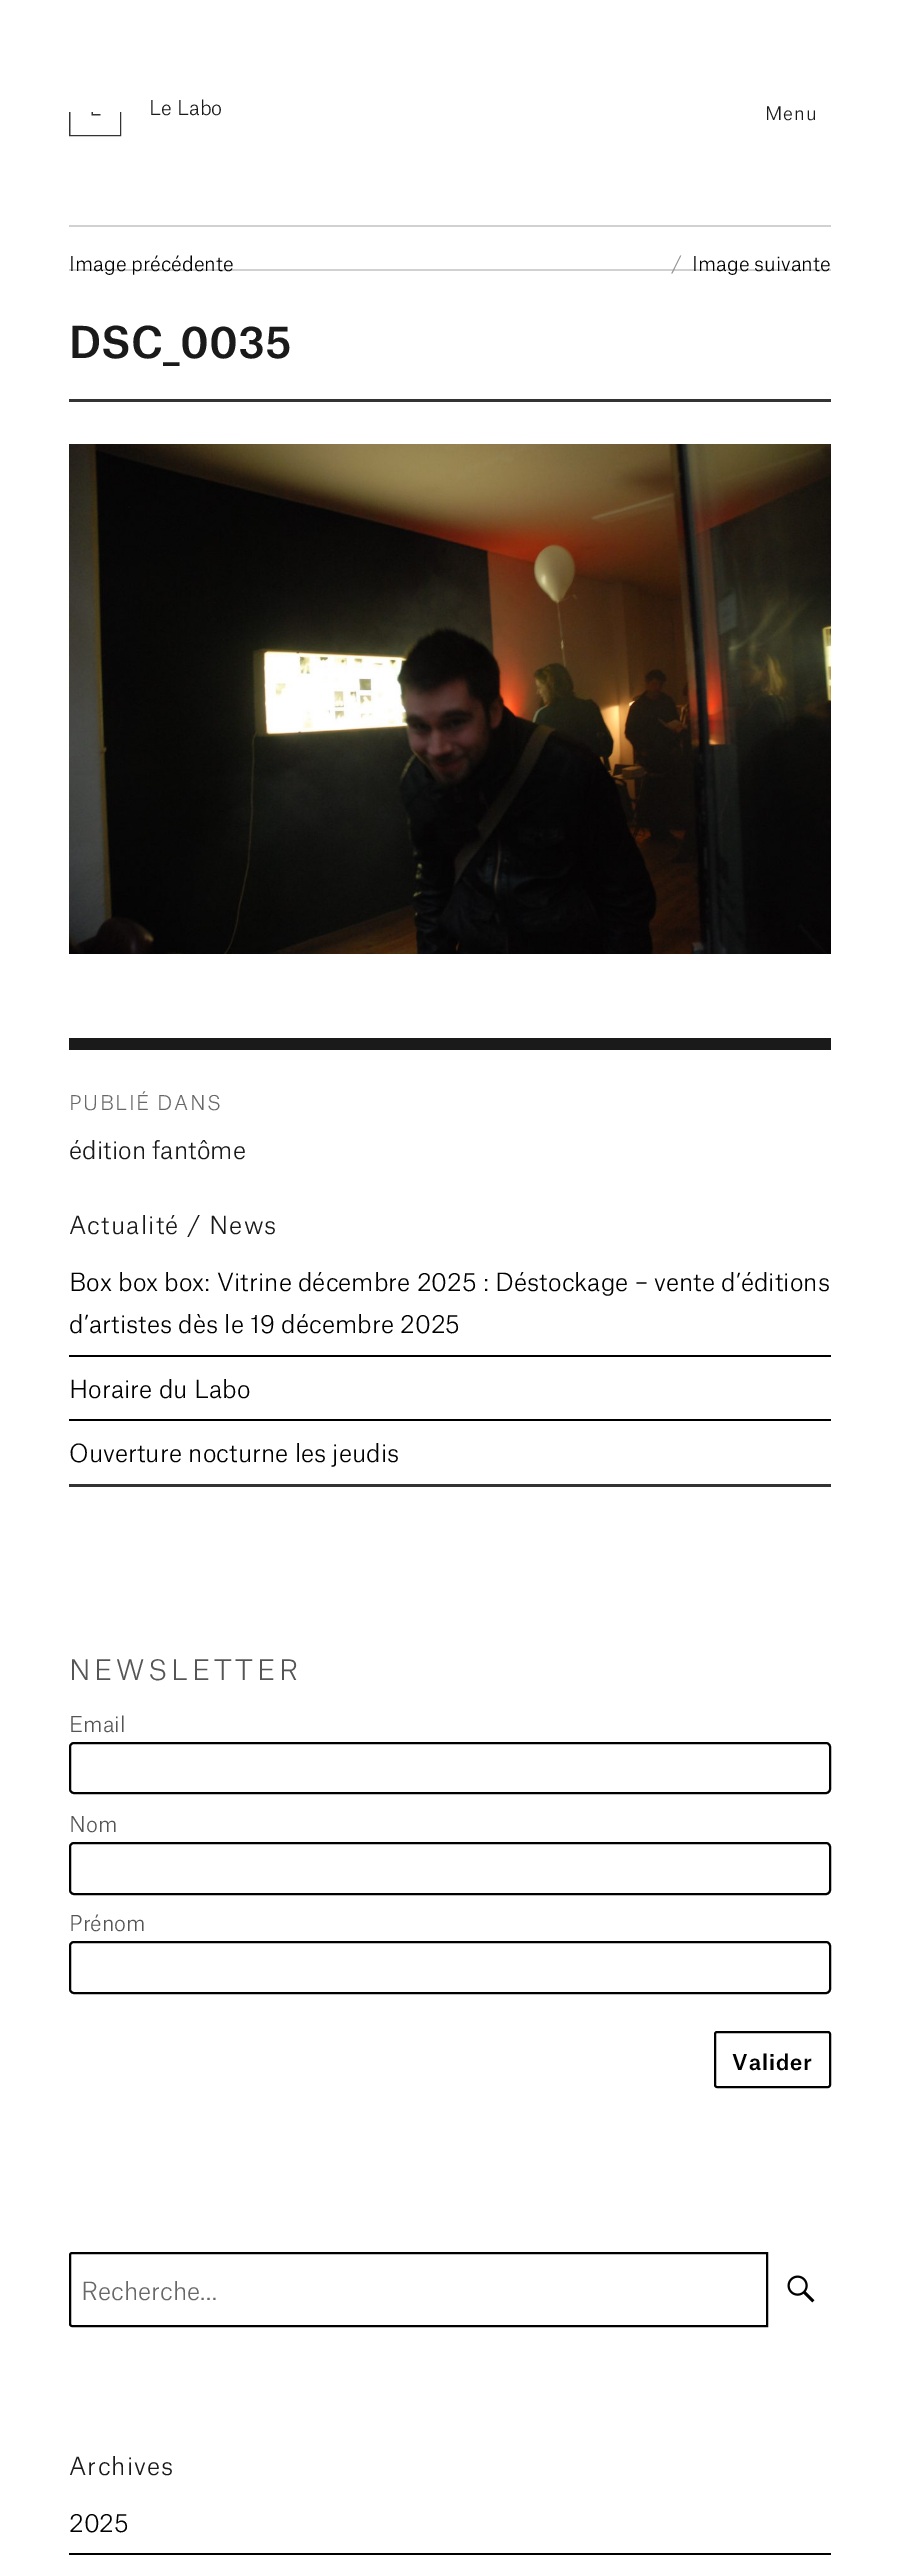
%!PS-Adobe-3.0
%%BoundingBox: 0 0 900 2559
%%LanguageLevel: 3
%%Pages: 1
%%EndComments
%%BeginProlog
/rrect { 5 dict begin { /r /h /w /y /x } { exch def } forall
  x r add y moveto x w add y 2 copy h add r arct x w add y h add x 1 index r arct
  x y h add x y r arct x y 2 copy exch w add exch r arct closepath end } def
/drawimage { 5 dict begin { /h /w /y /x /name } { exch def } forall
  gsave x y translate w h scale
  w h 8 [w 0 0 h 0 0] name (r) file false 3 colorimage grestore end } def
%%EndProlog
%%BeginSetup
<< /PageSize [900 2559] >> setpagedevice
%%EndSetup
%%Page: 1 1
0 2559 translate 1 -1 scale
4 setmiterlimit
1 setgray
0 0 900 2559 rectfill
(images/1.raw) 69 112 53 25 drawimage
0.82 setgray
69 225 762 2 rectfill
69 269 762 2 rectfill
0.2 setgray
69 399 762 3 rectfill
(images/2.raw) 69 444 762 510 drawimage
0.102 setgray
69 1038 762 12 rectfill
0 setgray
69 1355 762 2 rectfill
69 1419 762 2 rectfill
0.2 setgray
69 1484 762 3 rectfill
0 setgray
2 setlinewidth
70 1743 760 50 4 rrect stroke
70 1843 760 51 4 rrect stroke
70 1942 760 51 4 rrect stroke
715 2032 115 55 2 rrect stroke
newpath 72 2253 moveto 767 2253 lineto 767 2326 lineto 72 2326 lineto 71 2326 70 2325 70 2324 curveto 70 2255 lineto 70 2254 71 2253 72 2253 curveto closepath stroke
(images/3.raw) 787 2275 28 28 drawimage
69 2553 762 2 rectfill
/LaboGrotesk-Light [19.5 0 0 -19.5 0 0] selectfont
0.102 setgray
149 115 moveto (Le Labo) show
/LaboGrotesk-Light [18 0 0 -18 0 0] selectfont
765 120 moveto 1 0 (Menu) ashow
/LaboGrotesk-Light [19.5 0 0 -19.5 0 0] selectfont
0 setgray
69 271 moveto (Image précédente) show
0.58 setgray
671 271 moveto (/) show
0 setgray
692 271 moveto (Image suivante) show
/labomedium-Medium [42 0 0 -42 0 0] selectfont
0.102 setgray
69 358 moveto (DSC_0035) show
/LaboGrotesk-Light [19.5 0 0 -19.5 0 0] selectfont
0.408 setgray
69 1110 moveto 1.5 0 (PUBLIÉ DANS) ashow
/LaboGrotesk-Light [24 0 0 -24 0 0] selectfont
0.102 setgray
69 1159 moveto (édition fantôme) show
69 1234 moveto 1.1 0 (Actualité / News) ashow
0 setgray
69 1291 moveto (Box box box: Vitrine décembre 2025 : Déstockage – vente d’éditions) show
69 1333 moveto (d’artistes dès le 19 décembre 2025) show
69 1398 moveto (Horaire du Labo) show
69 1462 moveto (Ouverture nocturne les jeudis) show
/LaboGrotesk-Light [27 0 0 -27 0 0] selectfont
0.333 setgray
69 1680 moveto 3.75 0 (NEWSLETTER) ashow
/LaboGrotesk-Light [21 0 0 -21 0 0] selectfont
69 1732 moveto (Email) show
69 1832 moveto (Nom) show
69 1931 moveto (Prénom) show
/labomedium-Medium [21 0 0 -21 0 0] selectfont
0 setgray
732 2070 moveto 1 0 (Valider) ashow
/LaboGrotesk-Light [24 0 0 -24 0 0] selectfont
0.408 setgray
81 2300 moveto (Recherche…) show
0.102 setgray
69 2475 moveto 1.1 0 (Archives) ashow
0 setgray
69 2532 moveto (2025) show
showpage
%%EOF
